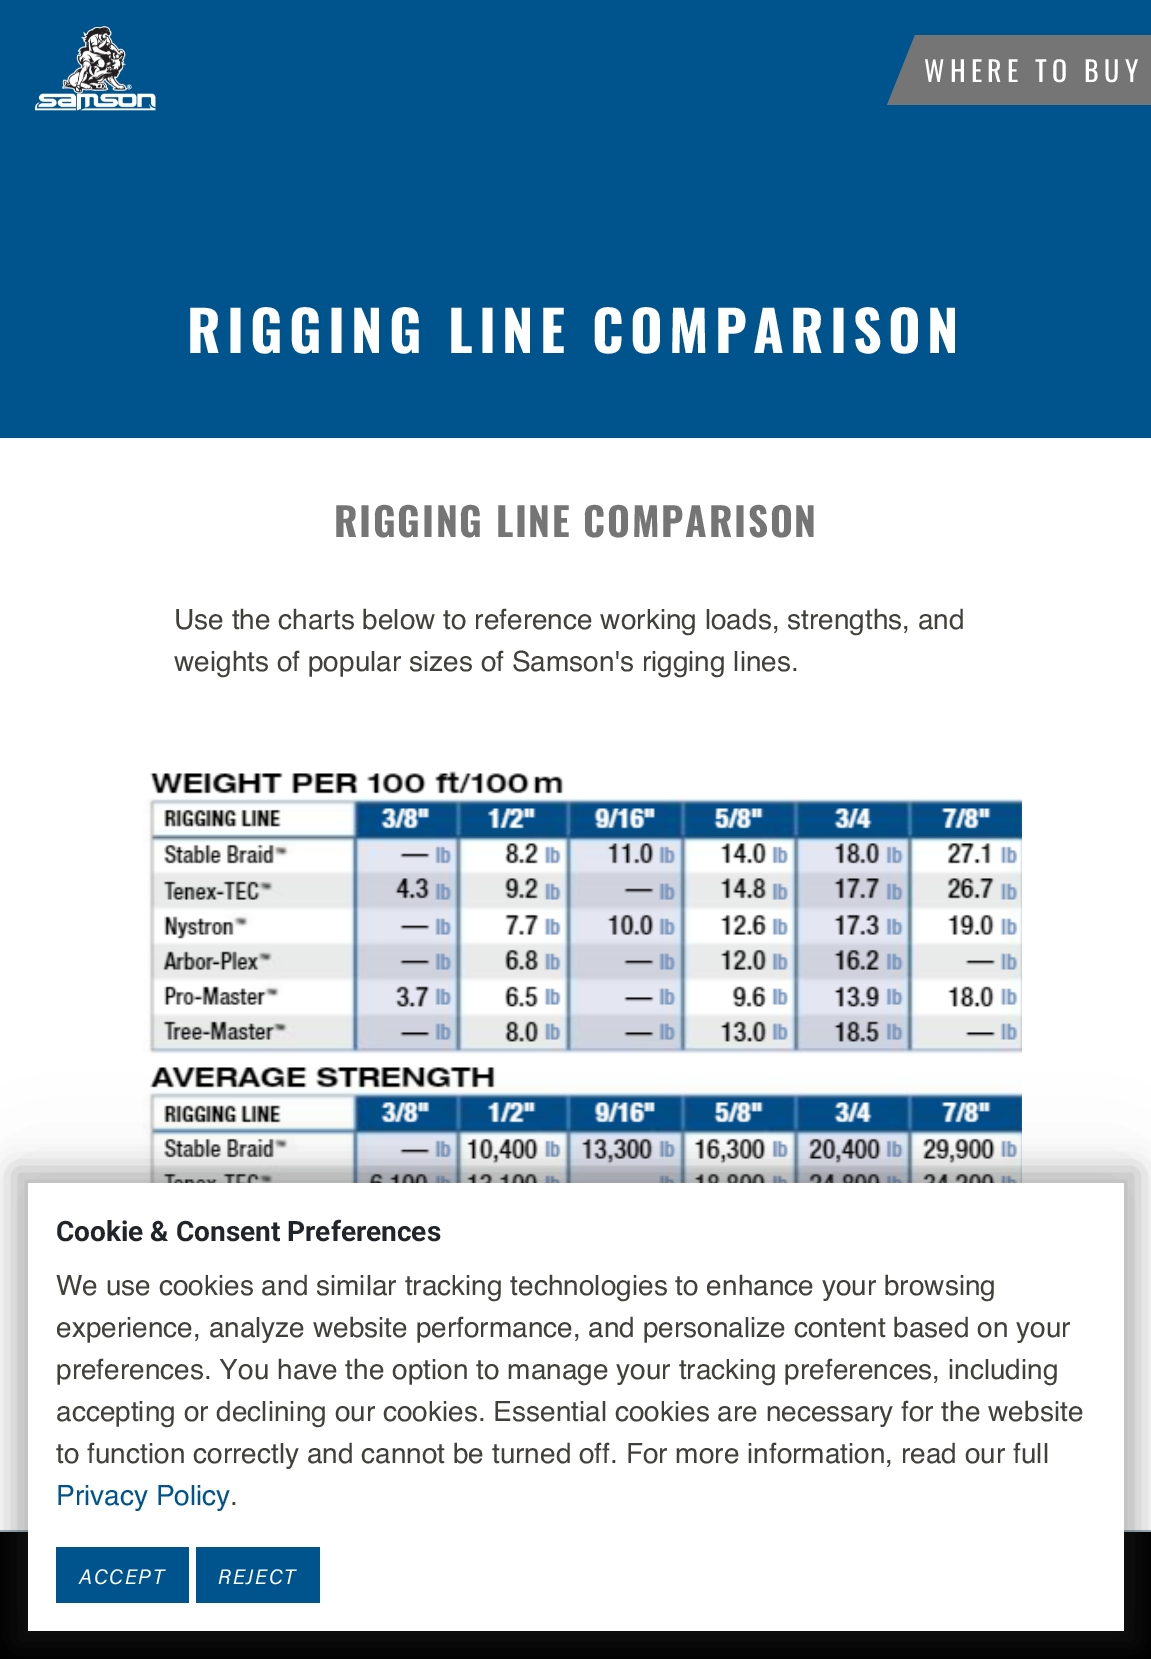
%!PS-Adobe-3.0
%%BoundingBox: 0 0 1151 1659
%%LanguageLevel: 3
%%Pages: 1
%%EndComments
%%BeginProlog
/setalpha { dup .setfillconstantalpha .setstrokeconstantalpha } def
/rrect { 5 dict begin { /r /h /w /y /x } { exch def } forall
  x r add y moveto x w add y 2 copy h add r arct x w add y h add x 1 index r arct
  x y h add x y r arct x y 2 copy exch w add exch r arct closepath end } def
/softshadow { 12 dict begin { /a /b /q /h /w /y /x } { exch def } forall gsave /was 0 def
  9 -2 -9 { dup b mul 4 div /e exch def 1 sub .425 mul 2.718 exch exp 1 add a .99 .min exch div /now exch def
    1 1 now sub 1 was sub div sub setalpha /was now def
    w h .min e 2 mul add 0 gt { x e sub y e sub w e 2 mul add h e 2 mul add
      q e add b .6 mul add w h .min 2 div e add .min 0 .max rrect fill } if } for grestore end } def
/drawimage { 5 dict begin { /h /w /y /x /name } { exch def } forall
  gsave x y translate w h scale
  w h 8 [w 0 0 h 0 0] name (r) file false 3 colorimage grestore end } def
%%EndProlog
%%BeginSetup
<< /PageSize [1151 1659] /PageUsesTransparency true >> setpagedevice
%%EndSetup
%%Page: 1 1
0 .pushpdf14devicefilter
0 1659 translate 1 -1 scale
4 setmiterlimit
1 setgray
0 0 1151 1659 rectfill
0 0.329 0.557 setrgbcolor
0 0 1151 438 rectfill
(images/1.raw) 35 26 121 85 drawimage
0.459 setgray
915 35 236 70 rectfill
newpath 915 35 moveto 915 105 lineto 887 105 lineto closepath fill
0 setgray
0 1532 1151 127 rectfill
0.624 0.682 0.745 setrgbcolor
0 1530 1151 2 rectfill
(images/2.raw) 143 771 879 412 drawimage
0.2 setgray
28 1183 1096 448 0 49 0.1 softshadow
14 1169 1124 476 0 14 0.3 softshadow
1 setgray
28 1183 1096 448 rectfill
0 0.329 0.557 setrgbcolor
56 1547 133 56 rectfill
196 1547 124 56 rectfill
/Oswald-Regular [28 0 0 -28 0 0] selectfont
1 setgray
924 82 moveto 5.25 0 (WHERE TO BUY) ashow
/Oswald-Bold [56 0 0 -56 0 0] selectfont
187 353 moveto 6.3 0 (RIGGING LINE COMPARISON) ashow
/Oswald-Bold [39.25 0 0 -39.25 0 0] selectfont
0.459 setgray
334 537 moveto 1.75 0 (RIGGING LINE COMPARISON) ashow
/Helvetica-Regular [28 0 0 -28 0 0] selectfont
0.255 0.251 0.231 setrgbcolor
174 629 moveto (Use the charts below to reference working loads, strengths, and) show
174 671 moveto (weights of popular sizes of Samson's rigging lines.) show
/Roboto-Bold [28 0 0 -28 0 0] selectfont
0.129 0.145 0.161 setrgbcolor
56 1241 moveto (Cookie & Consent Preferences) show
/Helvetica-Regular [28 0 0 -28 0 0] selectfont
0.255 0.251 0.231 setrgbcolor
56 1295 moveto (We use cookies and similar tracking technologies to enhance your browsing) show
56 1337 moveto (experience, analyze website performance, and personalize content based on your) show
56 1379 moveto (preferences. You have the option to manage your tracking preferences, including) show
56 1421 moveto (accepting or declining our cookies. Essential cookies are necessary for the website) show
56 1463 moveto (to function correctly and cannot be turned off. For more information, read our full) show
0 0.329 0.557 setrgbcolor
56 1505 moveto (Privacy Policy) show
0.255 0.251 0.231 setrgbcolor
230 1505 moveto (.) show
/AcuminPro-Italic [21 0 0 -21 0 0] selectfont
1 setgray
79 1584 moveto 1.75 0 (ACCEPT) ashow
218 1584 moveto 1.75 0 (REJECT) ashow
.poppdf14devicefilter showpage
%%EOF
